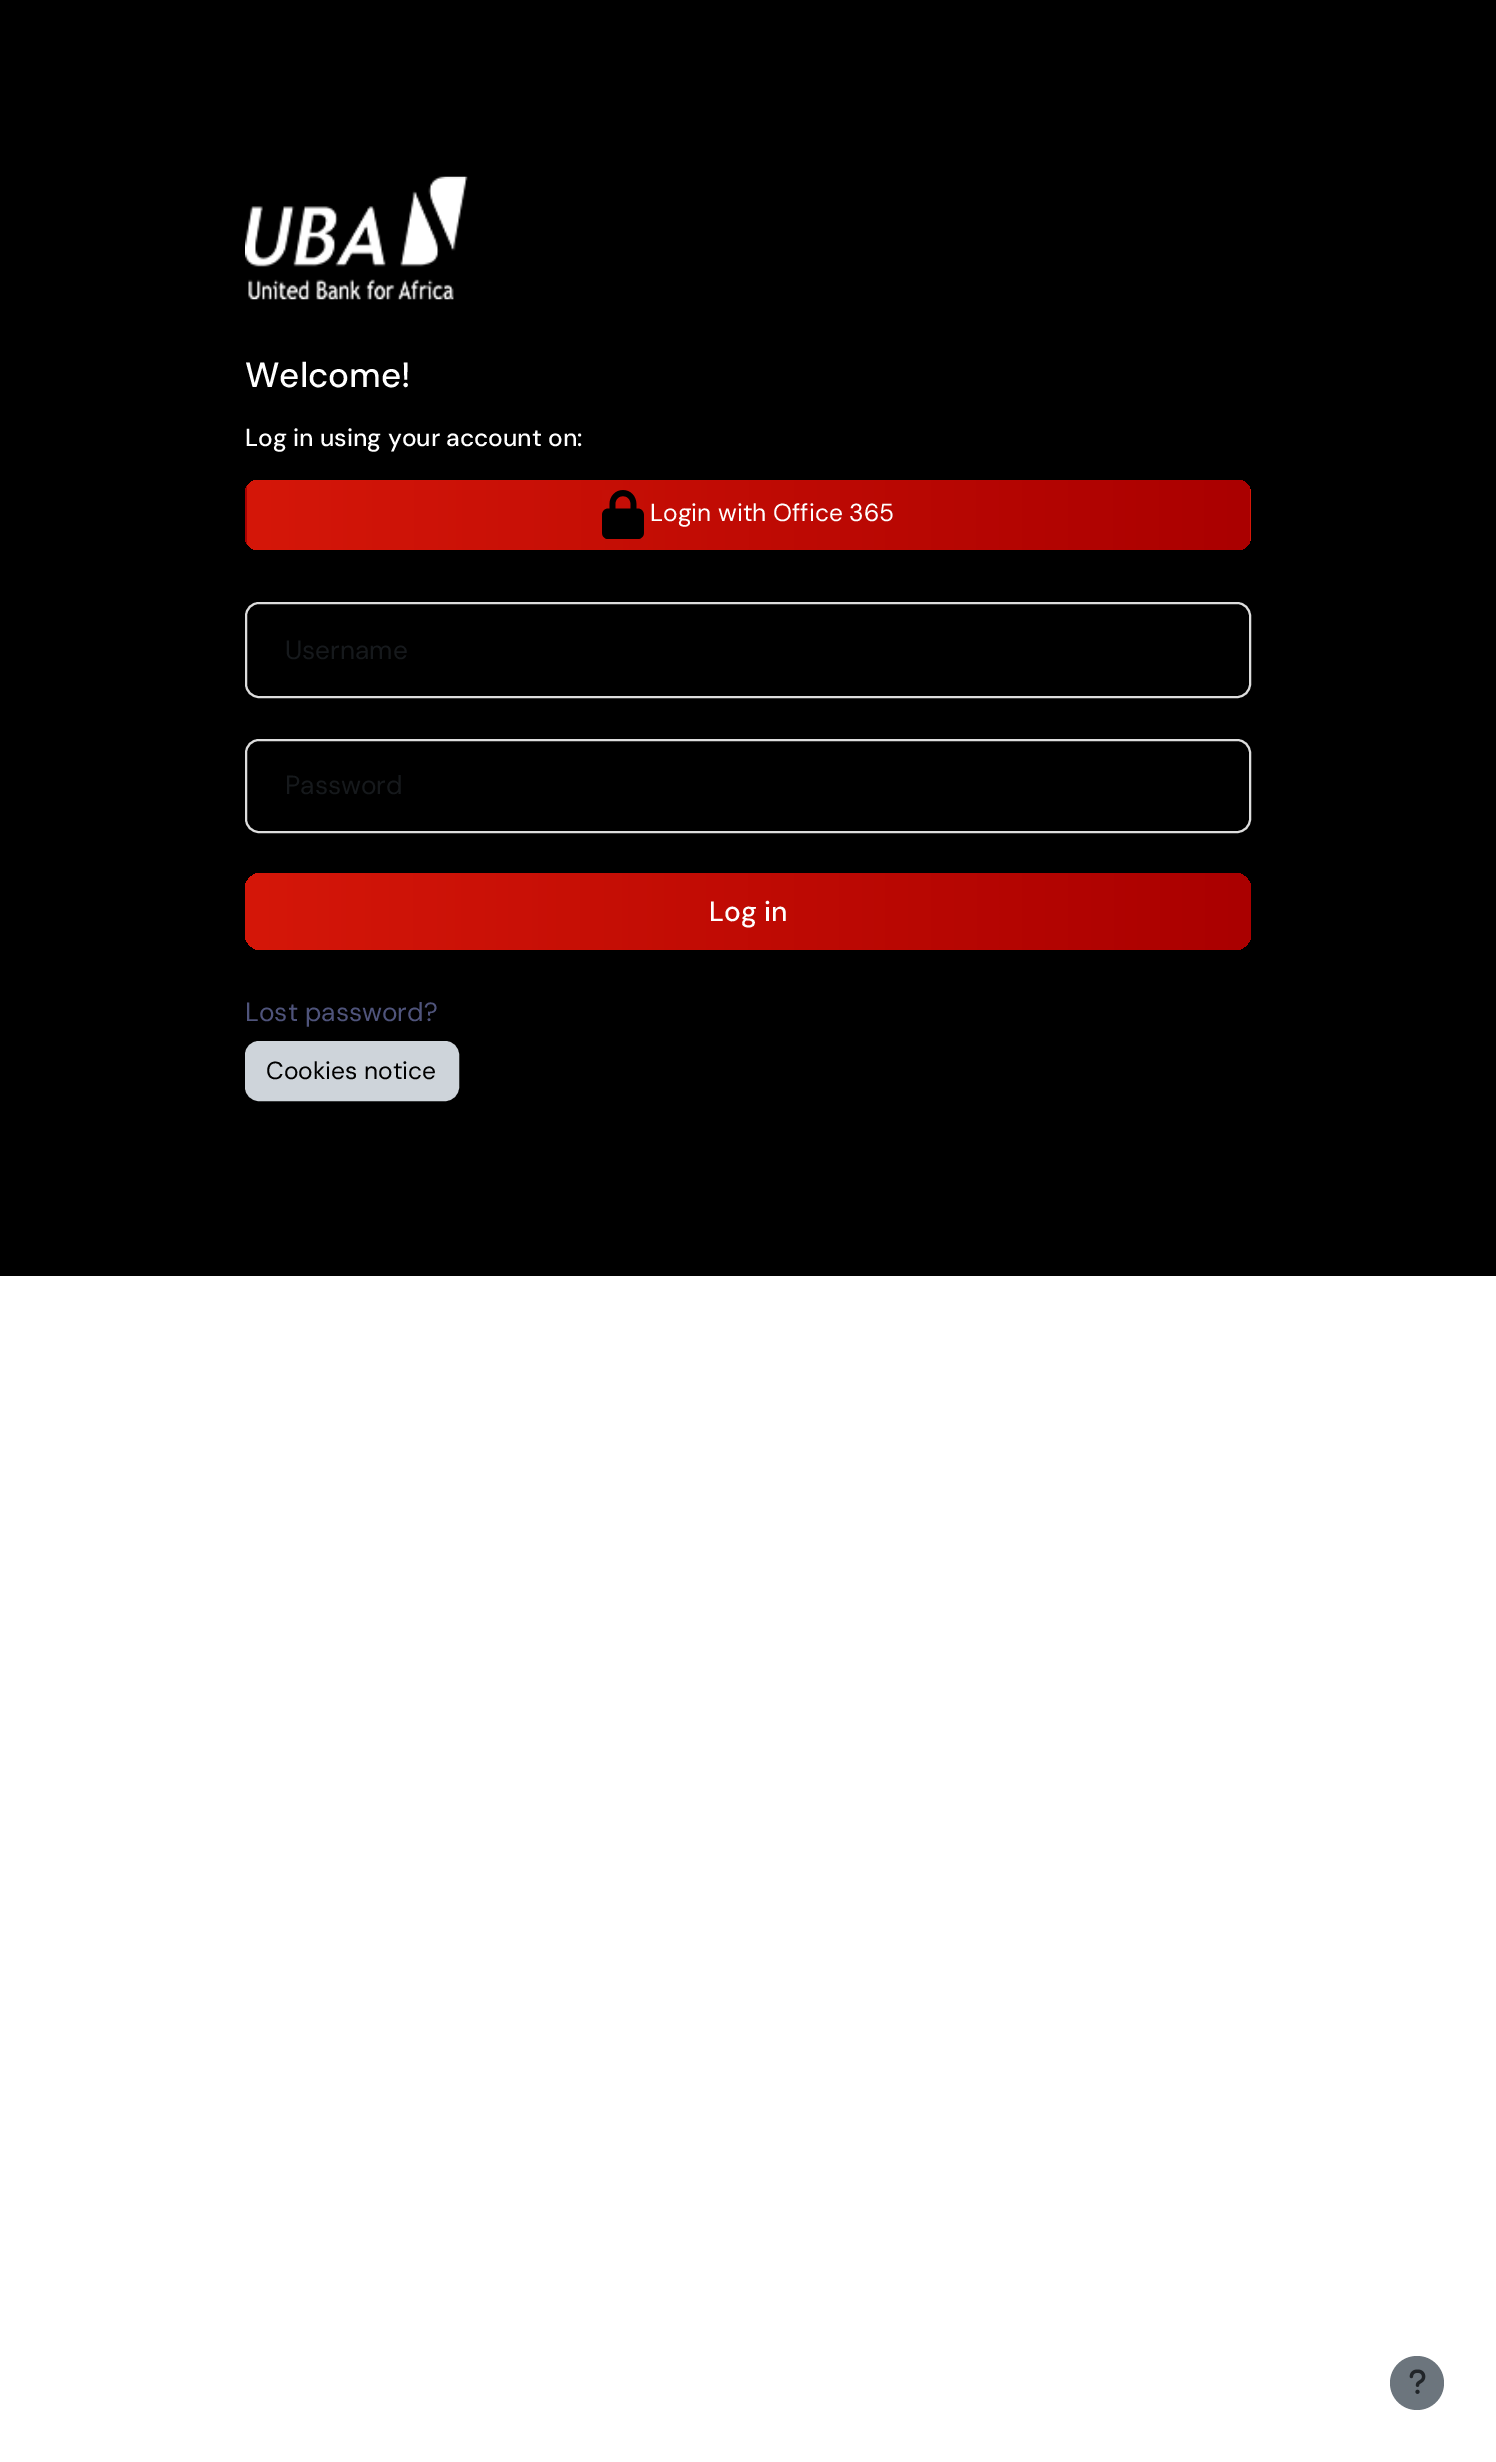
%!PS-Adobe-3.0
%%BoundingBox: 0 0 1496 2462
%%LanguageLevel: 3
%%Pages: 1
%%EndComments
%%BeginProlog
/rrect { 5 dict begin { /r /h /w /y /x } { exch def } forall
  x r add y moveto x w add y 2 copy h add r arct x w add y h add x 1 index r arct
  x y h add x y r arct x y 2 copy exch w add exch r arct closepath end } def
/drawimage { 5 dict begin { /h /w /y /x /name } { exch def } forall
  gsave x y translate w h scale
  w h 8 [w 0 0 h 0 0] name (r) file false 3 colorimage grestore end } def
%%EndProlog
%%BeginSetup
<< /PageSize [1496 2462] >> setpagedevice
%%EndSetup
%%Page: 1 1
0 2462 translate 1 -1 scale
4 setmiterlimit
1 setgray
0 0 1496 2462 rectfill
0 setgray
0 0 1496 1276 rectfill
(images/1.raw) 245 176 223 124 drawimage
gsave
245 480 1006 70 14 rrect clip newpath
gsave newpath 245 480 moveto 247 480 lineto 247 550 lineto 245 550 lineto closepath clip newpath
<< /ShadingType 2 /ColorSpace /DeviceRGB /Coords [-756 515 247 515] /Extend [true true] /Function << /FunctionType 2 /Domain [0 1] /C0 [0.835 0.09 0.035] /C1 [0.667 0 0] /N 1 >> >> shfill grestore
gsave newpath 247 480 moveto 1250 480 lineto 1250 550 lineto 247 550 lineto closepath clip newpath
<< /ShadingType 2 /ColorSpace /DeviceRGB /Coords [247 515 1250 515] /Extend [true true] /Function << /FunctionType 2 /Domain [0 1] /C0 [0.835 0.09 0.035] /C1 [0.667 0 0] /N 1 >> >> shfill grestore
gsave newpath 1250 489 moveto 1251 489 lineto 1251 541 lineto 1250 541 lineto closepath clip newpath
<< /ShadingType 2 /ColorSpace /DeviceRGB /Coords [1250 515 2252 515] /Extend [true true] /Function << /FunctionType 2 /Domain [0 1] /C0 [0.835 0.09 0.035] /C1 [0.667 0 0] /N 1 >> >> shfill grestore
grestore
(images/2.raw) 602 490 42 49 drawimage
0.867 setgray
2 setlinewidth
246 603 1004 94 13 rrect stroke
246 740 1004 92 13 rrect stroke
gsave 245 873 1006 77 16 rrect clip newpath
<< /ShadingType 2 /ColorSpace /DeviceRGB /Coords [245 912 1251 912] /Extend [true true] /Function << /FunctionType 2 /Domain [0 1] /C0 [0.835 0.09 0.035] /C1 [0.667 0 0] /N 1 >> >> shfill grestore
0.808 0.831 0.855 setrgbcolor
246 1042 212 58 13 rrect gsave fill grestore
stroke
0.424 0.459 0.49 setrgbcolor
newpath 1417 2383 27 0 360 arc closepath fill
(images/3.raw) 1409 2369 17 25 drawimage
/DMSans-Medium [35 0 0 -35 0 0] selectfont
1 setgray
245 387 moveto (Welcome!) show
/DMSans-Medium [24.5 0 0 -24.5 0 0] selectfont
245 446 moveto (Log in using your account on:) show
/DMSans-Regular [24.6 0 0 -24.6 0 0] selectfont
650 521 moveto (Login with Office 365) show
/DMSans-Regular [26.25 0 0 -26.25 0 0] selectfont
0.086 0.098 0.11 setrgbcolor
285 659 moveto (Username) show
285 794 moveto (Password) show
/DMSans-Medium [28 0 0 -28 0 0] selectfont
1 setgray
709 921 moveto (Log in) show
/DMSans-Regular [26.25 0 0 -26.25 0 0] selectfont
0.31 0.329 0.482 setrgbcolor
245 1021 moveto (Lost password?) show
/DMSans-Regular [24.6 0 0 -24.6 0 0] selectfont
0 setgray
266 1079 moveto (Cookies notice) show
showpage
%%EOF
